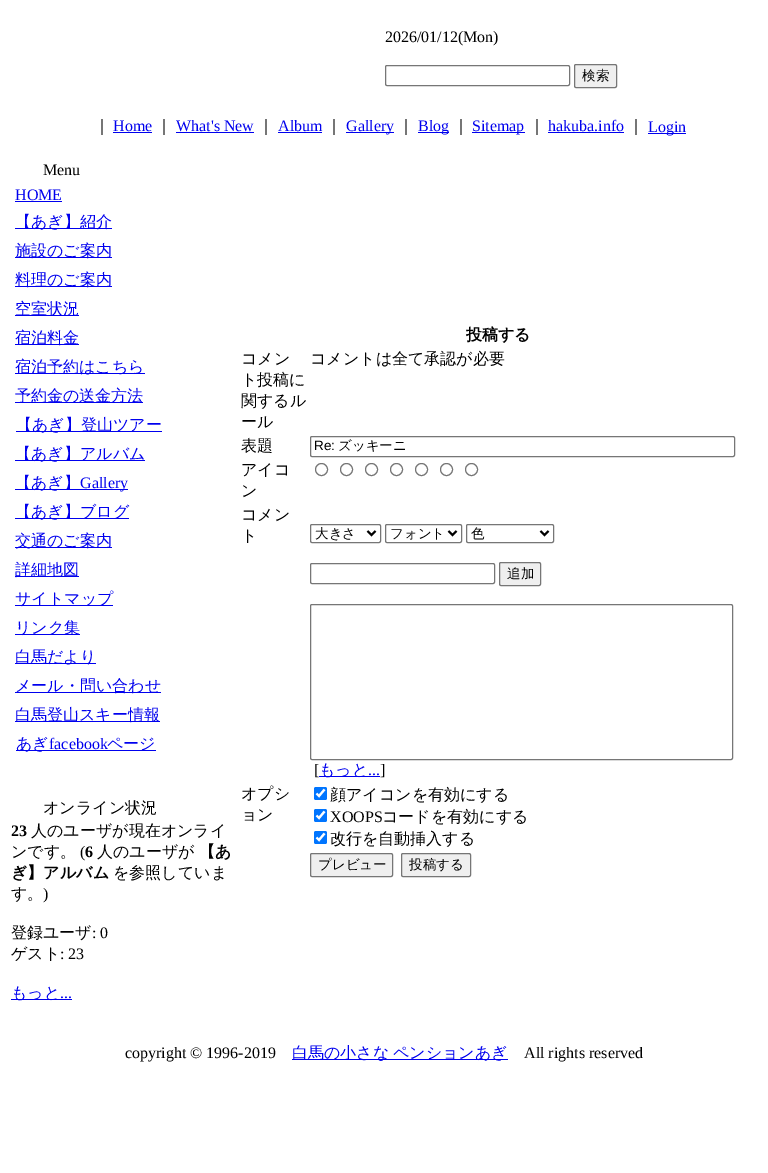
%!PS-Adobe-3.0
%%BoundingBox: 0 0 768 1173
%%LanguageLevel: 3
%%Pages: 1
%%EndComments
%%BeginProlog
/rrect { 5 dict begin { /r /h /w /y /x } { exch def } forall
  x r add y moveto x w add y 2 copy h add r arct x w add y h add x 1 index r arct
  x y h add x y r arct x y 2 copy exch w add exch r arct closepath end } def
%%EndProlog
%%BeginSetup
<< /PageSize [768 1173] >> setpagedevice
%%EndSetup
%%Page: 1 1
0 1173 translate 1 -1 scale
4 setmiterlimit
1 setgray
0 0 768 1173 rectfill
0.463 setgray
385.5 65.5 184 20 1.5 rrect stroke
0.937 setgray
574.5 64.5 42 23 1.5 rrect gsave fill grestore
0.463 setgray
stroke
0 0 0.933 setrgbcolor
113 132 39 1 rectfill
176 132 78 1 rectfill
278 132 44 1 rectfill
346 132 48 1 rectfill
418 132 31 1 rectfill
472 132 53 1 rectfill
548 132 76 1 rectfill
648 133 38 1 rectfill
15 201 47 1 rectfill
15 228 97 1 rectfill
15 257 97 1 rectfill
15 286 97 1 rectfill
15 315 64 1 rectfill
15 344 64 1 rectfill
15 373 130 1 rectfill
15 402 128 1 rectfill
16 431 146 1 rectfill
15 460 130 1 rectfill
15 489 113 1 rectfill
15 518 114 1 rectfill
15 547 97 1 rectfill
15 576 64 1 rectfill
15 605 98 1 rectfill
15 634 65 1 rectfill
15 663 81 1 rectfill
15 692 146 1 rectfill
15 721 145 1 rectfill
16 750 140 1 rectfill
11 999 61 1 rectfill
0.463 setgray
310.5 436.5 424 20 1.5 rrect stroke
newpath 321.5 469.5 6 0 360 arc closepath stroke
newpath 346.5 469.5 6 0 360 arc closepath stroke
newpath 371.5 469.5 6 0 360 arc closepath stroke
newpath 396.5 469.5 6 0 360 arc closepath stroke
newpath 421.5 469.5 6 0 360 arc closepath stroke
newpath 446.5 469.5 6 0 360 arc closepath stroke
newpath 471.5 469.5 6 0 360 arc closepath stroke
310.5 524.5 70 18 1.5 rrect stroke
0 setgray
2 setlinewidth
newpath 367.5 531 moveto 371.5 535 lineto 375.5 531 lineto stroke
0.463 setgray
1 setlinewidth
385.5 524.5 76 18 1.5 rrect stroke
0 setgray
2 setlinewidth
newpath 448.5 531 moveto 452.5 535 lineto 456.5 531 lineto stroke
0.463 setgray
1 setlinewidth
466.5 524.5 87 18 1.5 rrect stroke
0 setgray
2 setlinewidth
newpath 540.5 531 moveto 544.5 535 lineto 548.5 531 lineto stroke
0.463 setgray
1 setlinewidth
310.5 563.5 184 20 1.5 rrect stroke
0.937 setgray
499.5 562.5 41 23 1.5 rrect gsave fill grestore
0.463 setgray
stroke
310.5 604.5 422 155 1.5 rrect stroke
0 0 0.933 setrgbcolor
319 776 61 1 rectfill
0 0.459 1 setrgbcolor
314 787 13 13 2 rrect fill
1 setgray
2.1 setlinewidth
newpath 316.5 793.5 moveto 319 796 lineto 324.5 789.5 lineto stroke
0 0.459 1 setrgbcolor
314 809 13 13 2 rrect fill
1 setgray
newpath 316.5 815.5 moveto 319 818 lineto 324.5 811.5 lineto stroke
0 0.459 1 setrgbcolor
314 831 13 13 2 rrect fill
1 setgray
newpath 316.5 837.5 moveto 319 840 lineto 324.5 833.5 lineto stroke
0.937 setgray
310.5 853.5 82 23 1.5 rrect gsave fill grestore
0.463 setgray
1 setlinewidth
stroke
0.937 setgray
401.5 853.5 69 23 1.5 rrect gsave fill grestore
0.463 setgray
stroke
0 0 0.933 setrgbcolor
292 1059 216 1 rectfill
/LiberationSerif-Regular [16 0 0 -16 0 0] selectfont
0 setgray
385 42 moveto (2026/01/12\(Mon\)) show
/WenQuanYiZenHei-Medium [13.5 0 0 -13.5 0 0] selectfont
582 80 moveto (検索) show
/WenQuanYiZenHei-Medium [16 0 0 -16 0 0] selectfont
94 131 moveto (｜) show
/LiberationSerif-Regular [16 0 0 -16 0 0] selectfont
0 0 0.933 setrgbcolor
113 131 moveto (Home) show
/WenQuanYiZenHei-Medium [16 0 0 -16 0 0] selectfont
0 setgray
156 131 moveto (｜) show
/LiberationSerif-Regular [16 0 0 -16 0 0] selectfont
0 0 0.933 setrgbcolor
176 131 moveto (What's New) show
/WenQuanYiZenHei-Medium [16 0 0 -16 0 0] selectfont
0 setgray
258 131 moveto (｜) show
/LiberationSerif-Regular [16 0 0 -16 0 0] selectfont
0 0 0.933 setrgbcolor
278 131 moveto (Album) show
/WenQuanYiZenHei-Medium [16 0 0 -16 0 0] selectfont
0 setgray
326 131 moveto (｜) show
/LiberationSerif-Regular [16 0 0 -16 0 0] selectfont
0 0 0.933 setrgbcolor
346 131 moveto (Gallery) show
/WenQuanYiZenHei-Medium [16 0 0 -16 0 0] selectfont
0 setgray
398 131 moveto (｜) show
/LiberationSerif-Regular [16 0 0 -16 0 0] selectfont
0 0 0.933 setrgbcolor
418 131 moveto (Blog) show
/WenQuanYiZenHei-Medium [16 0 0 -16 0 0] selectfont
0 setgray
453 131 moveto (｜) show
/LiberationSerif-Regular [16 0 0 -16 0 0] selectfont
0 0 0.933 setrgbcolor
472 131 moveto (Sitemap) show
/WenQuanYiZenHei-Medium [16 0 0 -16 0 0] selectfont
0 setgray
529 131 moveto (｜) show
/LiberationSerif-Regular [16 0 0 -16 0 0] selectfont
0 0 0.933 setrgbcolor
548 131 moveto (hakuba.info) show
/WenQuanYiZenHei-Medium [16 0 0 -16 0 0] selectfont
0 setgray
628 131 moveto (｜) show
/LiberationSerif-Regular [16 0 0 -16 0 0] selectfont
0 0 0.933 setrgbcolor
648 132 moveto (Login) show
0 setgray
43 175 moveto (Menu) show
0 0 0.933 setrgbcolor
15 200 moveto (HOME) show
/WenQuanYiZenHei-Medium [16 0 0 -16 0 0] selectfont
15 227 moveto (【あぎ】紹介) show
15 256 moveto (施設のご案内) show
15 285 moveto (料理のご案内) show
15 314 moveto (空室状況) show
15 343 moveto (宿泊料金) show
15 372 moveto (宿泊予約はこちら) show
15 401 moveto (予約金の送金方法) show
16 430 moveto (【あぎ】登山ツアー) show
15 459 moveto (【あぎ】アルバム) show
15 488 moveto (【あぎ】) show
/LiberationSerif-Regular [16 0 0 -16 0 0] selectfont
80 488 moveto (Gallery) show
/WenQuanYiZenHei-Medium [16 0 0 -16 0 0] selectfont
15 517 moveto (【あぎ】ブログ) show
15 546 moveto (交通のご案内) show
15 575 moveto (詳細地図) show
15 604 moveto (サイトマップ) show
15 633 moveto (リンク集) show
15 662 moveto (白馬だより) show
15 691 moveto (メール・問い合わせ) show
15 720 moveto (白馬登山スキー情報) show
16 749 moveto (あぎ) show
/LiberationSerif-Regular [16 0 0 -16 0 0] selectfont
49 749 moveto (facebook) show
/WenQuanYiZenHei-Medium [16 0 0 -16 0 0] selectfont
107 749 moveto (ページ) show
0 setgray
43 813 moveto (オンライン状況) show
/LiberationSerif-Bold [16 0 0 -16 0 0] selectfont
11 836 moveto (23) show
/WenQuanYiZenHei-Medium [16 0 0 -16 0 0] selectfont
31 836 moveto (人のユーザが現在オンライ) show
11 857 moveto (ンです。) show
/LiberationSerif-Regular [16 0 0 -16 0 0] selectfont
80 857 moveto (\() show
/LiberationSerif-Bold [16 0 0 -16 0 0] selectfont
85 857 moveto (6) show
/WenQuanYiZenHei-Medium [16 0 0 -16 0 0] selectfont
97 857 moveto (人のユーザが) show
/WenQuanYiZenHei-Bold [16 0 0 -16 0 0] selectfont
199 857 moveto (【あ) show
11 878 moveto (ぎ】アルバム) show
/WenQuanYiZenHei-Medium [16 0 0 -16 0 0] selectfont
113 878 moveto (を参照していま) show
11 899 moveto (す。) show
/LiberationSerif-Regular [16 0 0 -16 0 0] selectfont
43 899 moveto (\)) show
/WenQuanYiZenHei-Medium [16 0 0 -16 0 0] selectfont
11 938 moveto (登録ユーザ) show
/LiberationSerif-Regular [16 0 0 -16 0 0] selectfont
92 938 moveto (: 0) show
/WenQuanYiZenHei-Medium [16 0 0 -16 0 0] selectfont
11 959 moveto (ゲスト) show
/LiberationSerif-Regular [16 0 0 -16 0 0] selectfont
60 959 moveto (: 23) show
/WenQuanYiZenHei-Medium [16 0 0 -16 0 0] selectfont
0 0 0.933 setrgbcolor
11 998 moveto (もっと) show
/LiberationSerif-Regular [16 0 0 -16 0 0] selectfont
60 998 moveto (...) show
/WenQuanYiZenHei-Bold [16 0 0 -16 0 0] selectfont
0 setgray
466 340 moveto (投稿する) show
/WenQuanYiZenHei-Medium [16 0 0 -16 0 0] selectfont
241 364 moveto (コメン) show
241 385 moveto (ト投稿に) show
241 406 moveto (関するル) show
241 427 moveto (ール) show
310 364 moveto (コメントは全て承認が必要) show
241 451 moveto (表題) show
/LiberationSans-Regular [13.5 0 0 -13.5 0 0] selectfont
314 450 moveto (Re:) show
/WenQuanYiZenHei-Medium [13.5 0 0 -13.5 0 0] selectfont
338 450 moveto (ズッキーニ) show
/WenQuanYiZenHei-Medium [16 0 0 -16 0 0] selectfont
241 475 moveto (アイコ) show
241 496 moveto (ン) show
241 520 moveto (コメン) show
241 541 moveto (ト) show
/WenQuanYiZenHei-Medium [13.5 0 0 -13.5 0 0] selectfont
315 538 moveto (大きさ) show
390 538 moveto (フォント) show
471 538 moveto (色) show
507 578 moveto (追加) show
/LiberationSerif-Regular [16 0 0 -16 0 0] selectfont
314 775 moveto ([) show
/WenQuanYiZenHei-Medium [16 0 0 -16 0 0] selectfont
0 0 0.933 setrgbcolor
319 775 moveto (もっと) show
/LiberationSerif-Regular [16 0 0 -16 0 0] selectfont
368 775 moveto (...) show
0 setgray
380 775 moveto (]) show
/WenQuanYiZenHei-Medium [16 0 0 -16 0 0] selectfont
241 799 moveto (オプシ) show
241 820 moveto (ョン) show
330 800 moveto (顔アイコンを有効にする) show
/LiberationSerif-Regular [16 0 0 -16 0 0] selectfont
330 822 moveto (XOOPS) show
/WenQuanYiZenHei-Medium [16 0 0 -16 0 0] selectfont
382 822 moveto (コードを有効にする) show
330 844 moveto (改行を自動挿入する) show
/WenQuanYiZenHei-Medium [13.5 0 0 -13.5 0 0] selectfont
318 869 moveto (プレビュー) show
409 869 moveto (投稿する) show
/LiberationSerif-Regular [16 0 0 -16 0 0] selectfont
125 1058 moveto (copyright © 1996-2019) show
/WenQuanYiZenHei-Medium [16 0 0 -16 0 0] selectfont
0 0 0.933 setrgbcolor
292 1058 moveto -1 0 32 (白馬の小さな ペンションあぎ) widthshow
/LiberationSerif-Regular [16 0 0 -16 0 0] selectfont
0 setgray
524 1058 moveto (All rights reserved) show
showpage
%%EOF
